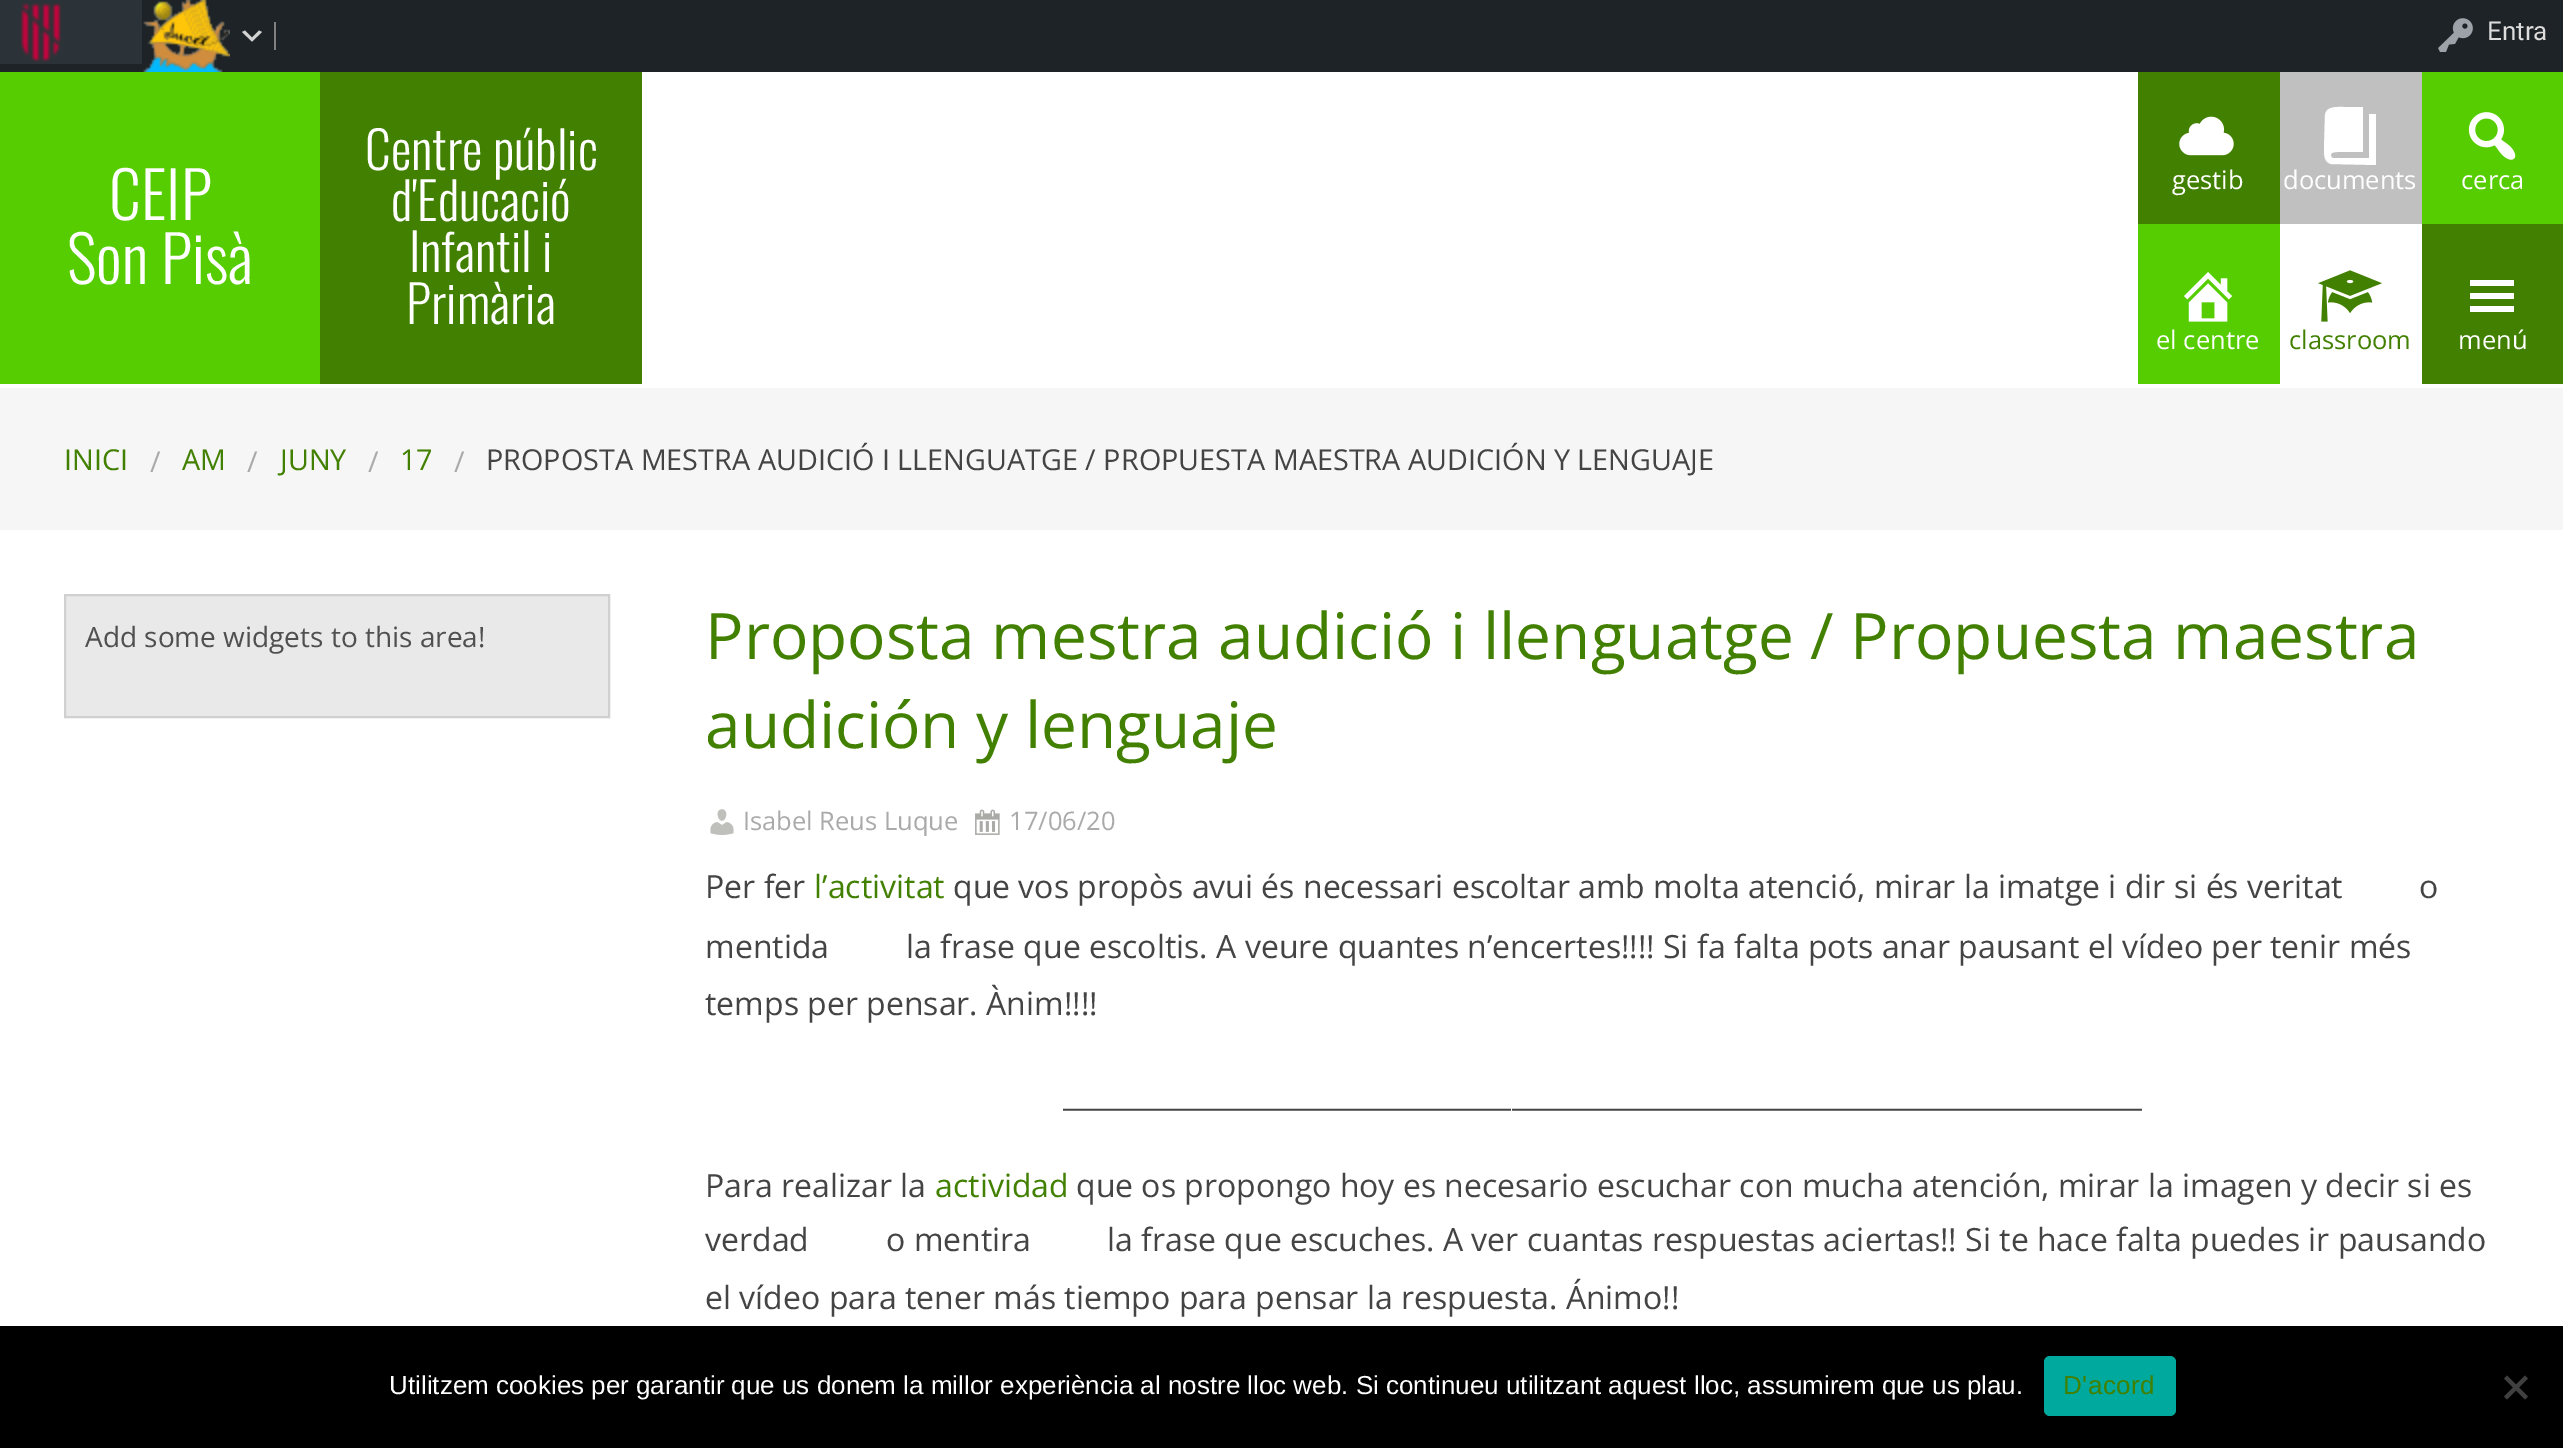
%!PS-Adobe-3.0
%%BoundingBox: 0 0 2563 1448
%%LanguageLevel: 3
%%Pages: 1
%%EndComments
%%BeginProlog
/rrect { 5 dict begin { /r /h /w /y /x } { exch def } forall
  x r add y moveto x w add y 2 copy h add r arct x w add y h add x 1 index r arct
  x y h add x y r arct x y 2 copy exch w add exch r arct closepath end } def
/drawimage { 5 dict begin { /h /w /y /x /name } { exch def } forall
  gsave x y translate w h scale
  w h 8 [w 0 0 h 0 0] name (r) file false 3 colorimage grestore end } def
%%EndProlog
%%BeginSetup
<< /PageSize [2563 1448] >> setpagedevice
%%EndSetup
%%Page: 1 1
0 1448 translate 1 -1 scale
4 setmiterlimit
1 setgray
0 0 2563 1448 rectfill
0.114 0.137 0.153 setrgbcolor
0 0 2563 72 rectfill
0.173 0.2 0.22 setrgbcolor
0 0 142 64 rectfill
(images/1.raw) 20 3 41 59 drawimage
(images/2.raw) 143 0 87 72 drawimage
0.502 setgray
274 22 2 28 rectfill
0.827 setgray
newpath 245 30.5 moveto 252 37.5 lineto 259 30.5 lineto 262 32 lineto 252 41.5 lineto 242 32 lineto closepath fill
(images/3.raw) 2438 18 35 34 drawimage
0.333 0.804 0 setrgbcolor
0 72 320 312 rectfill
0.255 0.502 0 setrgbcolor
320 72 322 312 rectfill
2138 72 142 152 rectfill
(images/4.raw) 2179 116 55 40 drawimage
0.753 setgray
2280 72 142 152 rectfill
1 setgray
newpath 2369 114 moveto 2376 114 lineto 2376 165 lineto 2331 164 lineto 2324 162 2324 155 2324 149 curveto 2325 115 lineto 2326 106 2337 107 2344 107 curveto 2363 107 lineto 2363 152 lineto 2358 152 2334 151 2332 153 curveto 2330 154 2331 158 2333 158 curveto 2369 158 lineto closepath fill
0.333 0.804 0 setrgbcolor
2422 72 141 152 rectfill
(images/5.raw) 2468 112 48 48 drawimage
2138 224 142 160 rectfill
(images/6.raw) 2184 272 49 50 drawimage
(images/7.raw) 2318 270 64 52 drawimage
0.255 0.502 0 setrgbcolor
2422 224 141 160 rectfill
1 setgray
newpath 2470 312 moveto 2514 312 lineto 2514 306 lineto 2470 306 lineto closepath 2470 280 moveto 2470 286 lineto 2514 286 lineto 2514 280 lineto closepath 2470 299 moveto 2514 299 lineto 2514 293 lineto 2470 293 lineto closepath fill
0.965 setgray
0 388 2563 142 rectfill
0.914 setgray
newpath 65 595 moveto 609 595 lineto 609 717 lineto 65 717 lineto closepath gsave fill grestore
0.816 setgray
2 setlinewidth
stroke
(images/8.raw) 710 809 24 26 drawimage
(images/9.raw) 975 809 25 26 drawimage
0 setgray
0 1326 2563 122 rectfill
0 0.663 0.616 setrgbcolor
2044 1356 132 60 6 rrect fill
0.251 setgray
newpath 2525 1375.5 moveto 2528 1378.5 lineto 2507 1399.5 lineto 2504 1396.5 lineto closepath fill
newpath 2504 1378.5 moveto 2507 1375.5 lineto 2528 1396.5 lineto 2525 1399.5 lineto closepath fill
/Roboto-Regular [26 0 0 -26 0 0] selectfont
0.867 setgray
2487 40 moveto (Entra) show
/Oswald-Light [64 0 0 -64 0 0] selectfont
1 setgray
109 220 moveto (CEIP) show
67 284 moveto (Son Pisà) show
/Oswald-Light [51.5 0 0 -51.5 0 0] selectfont
365 170 moveto (Centre públic) show
391 221 moveto (d'Educació) show
409 272 moveto (Infantil i) show
406 324 moveto (Primària) show
/OpenSans-Regular [25.5 0 0 -25.5 0 0] selectfont
2172 189 moveto (gestib) show
2283 189 moveto (documents) show
2461 189 moveto (cerca) show
2156 349 moveto (el centre) show
0.255 0.502 0 setrgbcolor
2289 349 moveto (classroom) show
1 setgray
2458 349 moveto (menú) show
/OpenSans-Regular [28.8 0 0 -28.8 0 0] selectfont
0.255 0.502 0 setrgbcolor
64 470 moveto (INICI) show
0.667 setgray
150 472 moveto (/) show
0.255 0.502 0 setrgbcolor
182 470 moveto (AM) show
0.667 setgray
247 472 moveto (/) show
0.255 0.502 0 setrgbcolor
280 470 moveto (JUNY) show
0.667 setgray
368 472 moveto (/) show
0.255 0.502 0 setrgbcolor
400 470 moveto (17) show
0.667 setgray
454 472 moveto (/) show
0.267 setgray
486 470 moveto (PROPOSTA MESTRA AUDICIÓ I LLENGUATGE / PROPUESTA MAESTRA AUDICIÓN Y LENGUAJE) show
/OpenSans-Regular [28 0 0 -28 0 0] selectfont
0.314 setgray
85 647 moveto (Add some widgets to this area!) show
/OpenSans-Regular [64 0 0 -64 0 0] selectfont
0.255 0.502 0 setrgbcolor
705 659 moveto (Proposta mestra audició i llenguatge / Propuesta maestra) show
705 748 moveto (audición y lenguaje) show
/OpenSans-Regular [25.5 0 0 -25.5 0 0] selectfont
0.667 setgray
743 830 moveto (Isabel Reus Luque) show
1009 830 moveto (17/06/20) show
/OpenSans-Regular [32 0 0 -32 0 0] selectfont
0.267 setgray
705 898 moveto (Per fer) show
0.255 0.502 0 setrgbcolor
814 898 moveto (l’activitat) show
0.267 setgray
953 898 moveto (que vos propòs avui és necessari escoltar amb molta atenció, mirar la imatge i dir si és veritat) show
2419 898 moveto (o) show
705 958 moveto (mentida) show
906 958 moveto (la frase que escoltis. A veure quantes n’encertes!!!! Si fa falta pots anar pausant el vídeo per tenir més) show
705 1015 moveto (temps per pensar. Ànim!!!!) show
1063 1106 moveto (_____________________________________________________________________________) show
705 1197 moveto (Para realizar la) show
0.255 0.502 0 setrgbcolor
935 1197 moveto (actividad) show
0.267 setgray
1076 1197 moveto (que os propongo hoy es necesario escuchar con mucha atención, mirar la imagen y decir si es) show
705 1251 moveto (verdad) show
886 1251 moveto (o mentira) show
1107 1251 moveto (la frase que escuches. A ver cuantas respuestas aciertas!! Si te hace falta puedes ir pausando) show
705 1309 moveto (el vídeo para tener más tiempo para pensar la respuesta. Ánimo!!) show
/LiberationSans-Regular [26 0 0 -26 0 0] selectfont
1 setgray
389 1394 moveto (Utilitzem cookies per garantir que us donem la millor experiència al nostre lloc web. Si continueu utilitzant aquest lloc, assumirem que us plau.) show
0.255 0.502 0 setrgbcolor
2063 1394 moveto 0.5 0 (D'acord) ashow
showpage
%%EOF
